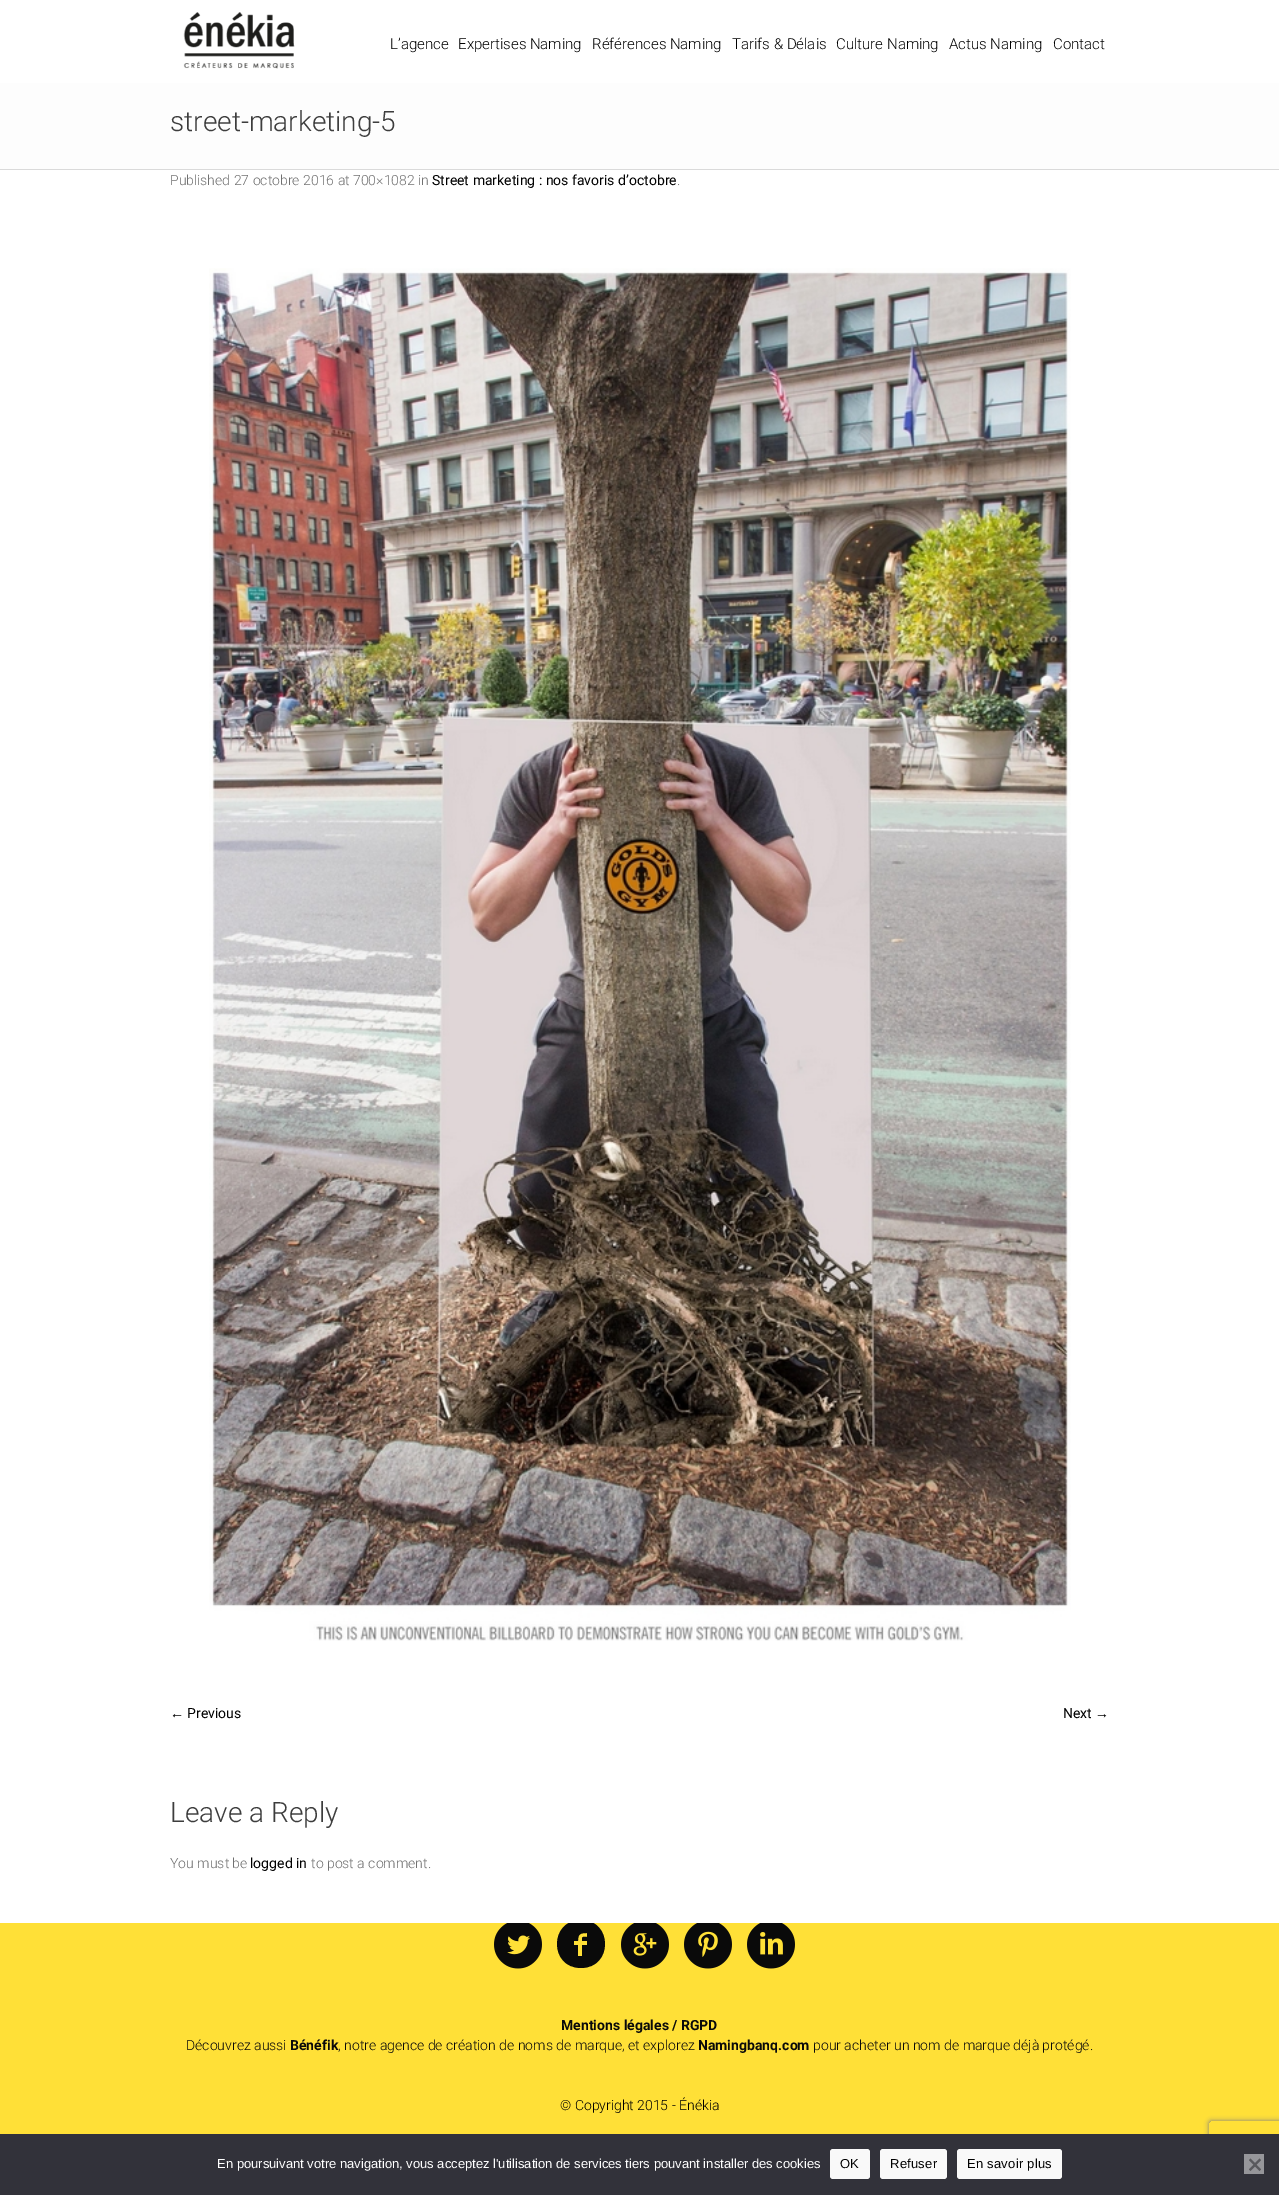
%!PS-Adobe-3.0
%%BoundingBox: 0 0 1279 2195
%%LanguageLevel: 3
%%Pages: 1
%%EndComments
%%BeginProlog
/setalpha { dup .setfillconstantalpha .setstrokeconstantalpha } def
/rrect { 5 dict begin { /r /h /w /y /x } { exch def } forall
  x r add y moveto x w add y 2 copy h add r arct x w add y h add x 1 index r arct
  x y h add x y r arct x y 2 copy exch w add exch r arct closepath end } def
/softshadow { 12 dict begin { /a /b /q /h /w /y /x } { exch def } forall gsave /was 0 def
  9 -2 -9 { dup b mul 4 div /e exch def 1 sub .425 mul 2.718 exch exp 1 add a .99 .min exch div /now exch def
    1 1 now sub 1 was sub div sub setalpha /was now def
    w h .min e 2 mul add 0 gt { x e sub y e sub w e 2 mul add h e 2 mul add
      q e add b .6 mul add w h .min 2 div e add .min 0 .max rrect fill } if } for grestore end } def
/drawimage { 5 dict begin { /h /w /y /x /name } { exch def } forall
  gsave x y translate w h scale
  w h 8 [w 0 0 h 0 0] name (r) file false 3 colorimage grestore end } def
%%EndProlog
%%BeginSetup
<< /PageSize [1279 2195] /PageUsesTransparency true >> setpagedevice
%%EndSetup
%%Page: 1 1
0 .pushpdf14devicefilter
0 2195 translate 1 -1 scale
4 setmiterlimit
1 0.878 0.216 setrgbcolor
0 0 1279 2195 rectfill
1 setgray
0 0 1279 83 rectfill
(images/1.raw) 183 12 112 57 drawimage
0.992 setgray
0 83 1279 86 rectfill
0.855 setgray
0 169 1279 1 rectfill
0.039 setgray
newpath 581 1920 moveto 613 1920 613 1968 581 1968 curveto 549 1968 549 1920 581 1920 curveto closepath 587 1937 moveto 587 1933 lineto 580 1933 578 1934 578 1941 curveto 574 1941 lineto 574 1945 lineto 578 1945 lineto 578 1956 lineto 582 1956 lineto 582 1945 lineto 587 1945 lineto 587 1941 lineto 582 1941 lineto 582 1936 582 1937 587 1937 curveto closepath fill
1 setgray
0 170 1279 1753 rectfill
(images/2.raw) 209 268 862 1373 drawimage
(images/3.raw) 494 1923 48 46 drawimage
(images/4.raw) 621 1923 48 46 drawimage
(images/5.raw) 684 1923 48 46 drawimage
(images/6.raw) 747 1923 48 46 drawimage
gsave
newpath 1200 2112 moveto 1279 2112 lineto 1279 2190 lineto 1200 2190 lineto closepath 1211 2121 moveto 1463 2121 lineto 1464 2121 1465 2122 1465 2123 curveto 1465 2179 lineto 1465 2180 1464 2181 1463 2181 curveto 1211 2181 lineto 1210 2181 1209 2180 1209 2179 curveto 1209 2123 lineto 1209 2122 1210 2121 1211 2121 curveto closepath eoclip newpath
0.502 setgray
1209 2121 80 60 2 2.5 1 softshadow
grestore
0.196 0.196 0.227 setrgbcolor
0 2134 1279 61 rectfill
0.976 setgray
830 2149 40 30 3 rrect fill
880 2149 67 30 3 rrect fill
957 2149 105 30 3 rrect fill
0.588 0.588 0.604 setrgbcolor
1244 2154 20 20 rectfill
0.349 0.349 0.365 setrgbcolor
newpath 1259.5 2158.5 moveto 1261 2160 lineto 1250.5 2171 lineto 1249 2169.5 lineto closepath fill
newpath 1249 2160 moveto 1250.5 2158.5 lineto 1261 2169.5 lineto 1259.5 2171 lineto closepath fill
/Roboto-Light [15 0 0 -15 0 0] selectfont
0 setgray
390 49 moveto (L’agence) show
458 49 moveto (Expertises Naming) show
592 49 moveto (Références Naming) show
732 49 moveto (Tarifs & Délais) show
836 49 moveto (Culture Naming) show
949 49 moveto (Actus Naming) show
1053 49 moveto (Contact) show
/Roboto-Light [28 0 0 -28 0 0] selectfont
0.239 setgray
170 131 moveto (street-marketing-5) show
/Roboto-Light [14 0 0 -14 0 0] selectfont
0.439 setgray
170 185 moveto (Published 27 octobre 2016 at 700×1082 in) show
/Roboto-Regular [14 0 0 -14 0 0] selectfont
0 setgray
432 185 moveto (Street marketing : nos favoris d’octobre) show
/Roboto-Light [14 0 0 -14 0 0] selectfont
0.439 setgray
677 185 moveto (.) show
/LiberationSans-Regular [14 0 0 -14 0 0] selectfont
0 setgray
170 1718 moveto (←) show
/Roboto-Regular [14 0 0 -14 0 0] selectfont
187 1718 moveto (Previous) show
1063 1718 moveto (Next) show
/LiberationSans-Regular [14 0 0 -14 0 0] selectfont
1095 1718 moveto (→) show
/Roboto-Light [28 0 0 -28 0 0] selectfont
0.239 setgray
170 1822 moveto (Leave a Reply) show
/Roboto-Light [14 0 0 -14 0 0] selectfont
0.439 setgray
170 1868 moveto (You must be) show
/Roboto-Regular [14 0 0 -14 0 0] selectfont
0 setgray
250 1868 moveto (logged in) show
/Roboto-Light [14 0 0 -14 0 0] selectfont
0.439 setgray
311 1868 moveto (to post a comment.) show
/Roboto-Bold [14 0 0 -14 0 0] selectfont
0.039 setgray
561 2030 moveto (Mentions légales / RGPD) show
/Roboto-Light [14 0 0 -14 0 0] selectfont
186 2050 moveto (Découvrez aussi) show
/Roboto-Bold [14 0 0 -14 0 0] selectfont
290 2050 moveto (Bénéfik) show
/Roboto-Light [14 0 0 -14 0 0] selectfont
338 2050 moveto (, notre agence de création de noms de marque, et explorez) show
/Roboto-Bold [14 0 0 -14 0 0] selectfont
698 2050 moveto (Namingbanq.com) show
/Roboto-Light [14 0 0 -14 0 0] selectfont
813 2050 moveto (pour acheter un nom de marque déjà protégé.) show
0 setgray
560 2110 moveto (© Copyright 2015 - Énékia) show
/LiberationSans-Regular [13 0 0 -13 0 0] selectfont
1 setgray
217 2168 moveto (En poursuivant votre navigation, vous acceptez l'utilisation de services tiers pouvant installer des cookies) show
0 setgray
840 2168 moveto 0.25 0 (OK) ashow
890 2168 moveto 0.25 0 (Refuser) ashow
967 2168 moveto 0.25 0 (En savoir plus) ashow
.poppdf14devicefilter showpage
%%EOF
